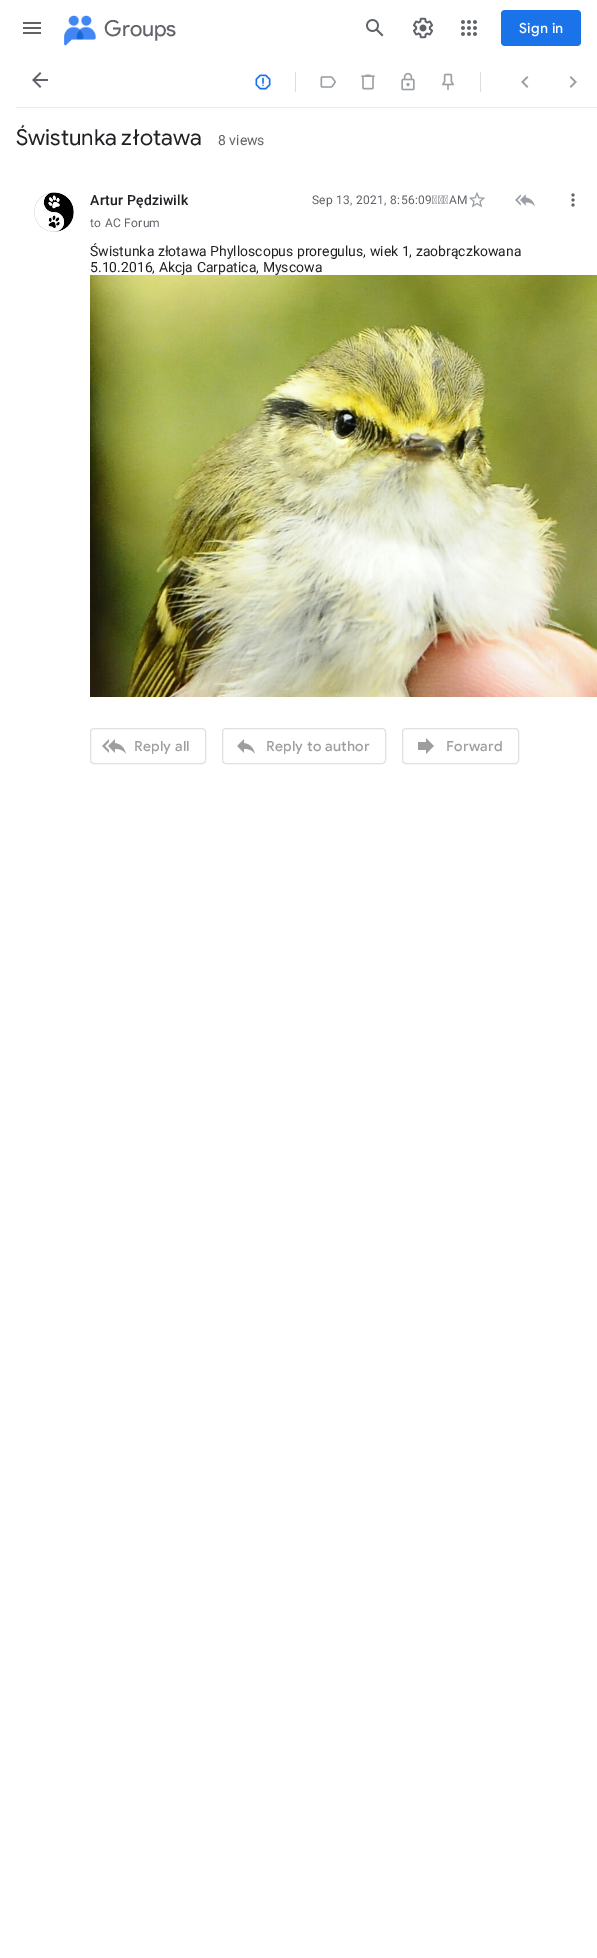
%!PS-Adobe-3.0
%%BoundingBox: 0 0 597 1958
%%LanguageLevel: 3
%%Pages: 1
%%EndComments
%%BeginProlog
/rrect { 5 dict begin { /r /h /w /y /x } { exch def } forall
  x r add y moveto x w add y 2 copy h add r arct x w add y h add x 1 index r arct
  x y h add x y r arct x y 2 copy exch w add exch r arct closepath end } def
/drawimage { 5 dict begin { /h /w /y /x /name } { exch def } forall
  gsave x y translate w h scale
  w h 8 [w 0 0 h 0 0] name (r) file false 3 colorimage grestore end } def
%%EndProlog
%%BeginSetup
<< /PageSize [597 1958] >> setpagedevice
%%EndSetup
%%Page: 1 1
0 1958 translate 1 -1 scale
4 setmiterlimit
1 setgray
0 0 597 1958 rectfill
(images/1.raw) 23 22 18 12 drawimage
(images/2.raw) 64 15 32 31 drawimage
(images/3.raw) 366 19 18 18 drawimage
(images/4.raw) 413 17 20 22 drawimage
(images/5.raw) 461 20 16 16 drawimage
0.102 0.451 0.91 setrgbcolor
501 10 80 36 4 rrect fill
0.91 0.918 0.929 setrgbcolor
16 107 581 1 rectfill
(images/6.raw) 32 72 16 16 drawimage
(images/7.raw) 255 74 16 16 drawimage
0.867 setgray
295 72 1 20 rectfill
(images/8.raw) 320 76 17 12 drawimage
(images/9.raw) 361 74 14 16 drawimage
(images/10.raw) 401 72 14 19 drawimage
(images/11.raw) 442 73 12 18 drawimage
480 72 1 20 rectfill
(images/12.raw) 521 76 8 12 drawimage
(images/13.raw) 569 76 8 12 drawimage
(images/14.raw) 34 192 40 40 drawimage
(images/15.raw) 468 192 18 16 drawimage
(images/16.raw) 515 194 20 13 drawimage
(images/17.raw) 571 193 4 14 drawimage
(images/18.raw) 90 275 507 422 drawimage
0.878 setgray
90.5 728.5 115 35 3.5 rrect stroke
(images/19.raw) 102 739 24 15 drawimage
222.5 728.5 163 35 3.5 rrect stroke
(images/20.raw) 237 739 18 15 drawimage
402.5 728.5 116 35 3.5 rrect stroke
(images/21.raw) 418 738 16 16 drawimage
/ProductSans-Regular [22 0 0 -22 0 0] selectfont
0.373 0.388 0.408 setrgbcolor
104 36 moveto (Groups) show
/GoogleSans-Medium [14 0 0 -14 0 0] selectfont
1 setgray
519 33 moveto 0.25 0 (Sign in) ashow
/GoogleSans-Regular [22 0 0 -22 0 0] selectfont
0.125 0.129 0.141 setrgbcolor
16 145 moveto (Świstunka złotawa) show
/Roboto-Regular [14 0 0 -14 0 0] selectfont
0.373 0.388 0.408 setrgbcolor
218 145 moveto (8 views) show
/Roboto-Medium [14 0 0 -14 0 0] selectfont
0.125 0.129 0.141 setrgbcolor
90 205 moveto 0.25 0 (Artur Pędziwilk) ashow
/Roboto-Regular [12 0 0 -12 0 0] selectfont
0.373 0.388 0.408 setrgbcolor
312 204 moveto 0.3 0 (Sep 13, 2021, 8:56:09 AM) ashow
90 227 moveto 0.3 0 (to AC Forum) ashow
/Roboto-Regular [14 0 0 -14 0 0] selectfont
0.125 0.129 0.141 setrgbcolor
90 256 moveto (Świstunka złotawa Phylloscopus proregulus, wiek 1, zaobrączkowana) show
90 272 moveto (5.10.2016, Akcja Carpatica, Myscowa) show
/GoogleSans-Medium [14 0 0 -14 0 0] selectfont
0.62 setgray
134 751 moveto 0.25 0 (Reply all) ashow
266 751 moveto 0.25 0 (Reply to author) ashow
446 751 moveto 0.25 0 (Forward) ashow
showpage
%%EOF
